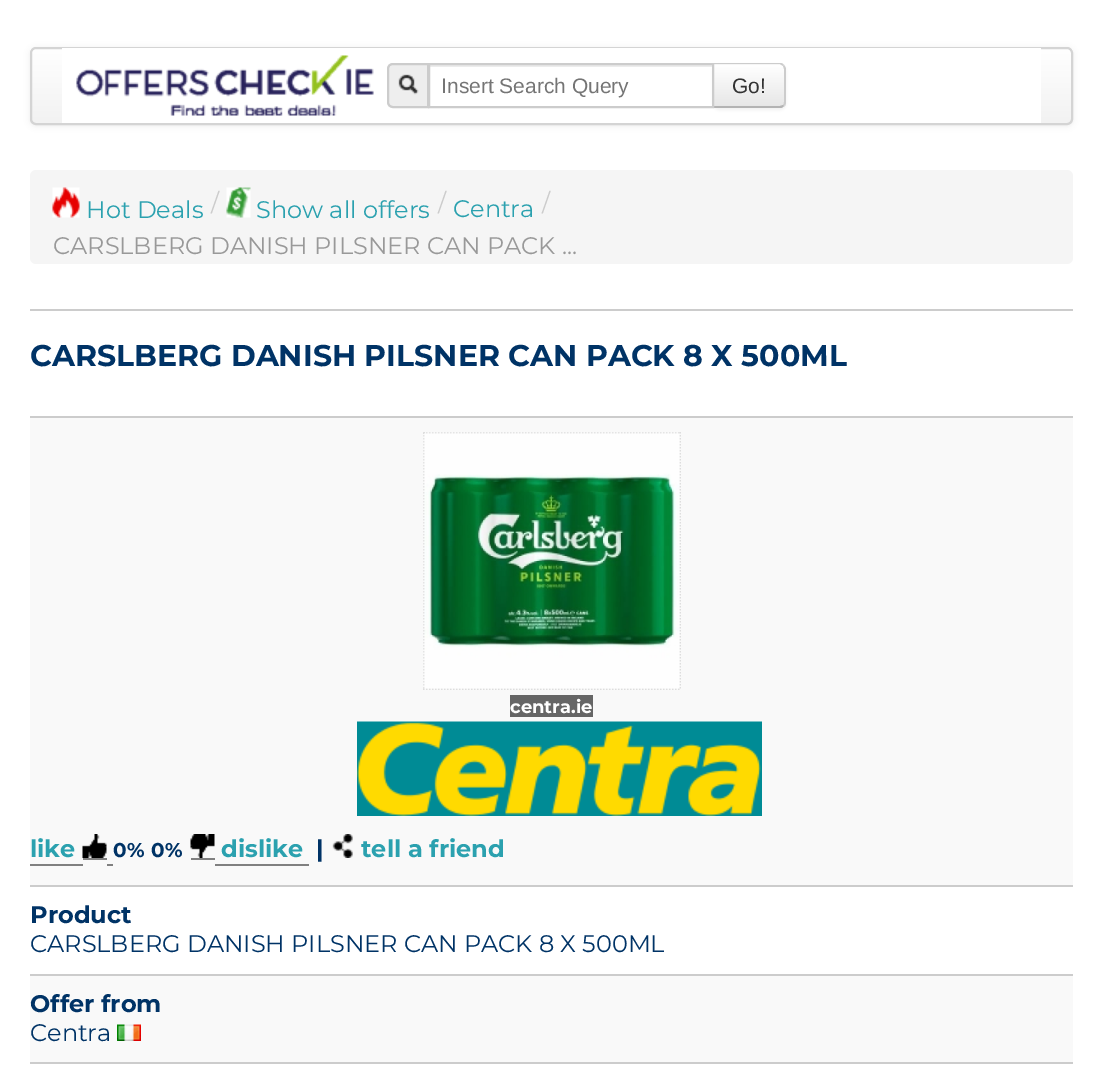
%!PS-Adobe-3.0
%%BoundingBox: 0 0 1102 1077
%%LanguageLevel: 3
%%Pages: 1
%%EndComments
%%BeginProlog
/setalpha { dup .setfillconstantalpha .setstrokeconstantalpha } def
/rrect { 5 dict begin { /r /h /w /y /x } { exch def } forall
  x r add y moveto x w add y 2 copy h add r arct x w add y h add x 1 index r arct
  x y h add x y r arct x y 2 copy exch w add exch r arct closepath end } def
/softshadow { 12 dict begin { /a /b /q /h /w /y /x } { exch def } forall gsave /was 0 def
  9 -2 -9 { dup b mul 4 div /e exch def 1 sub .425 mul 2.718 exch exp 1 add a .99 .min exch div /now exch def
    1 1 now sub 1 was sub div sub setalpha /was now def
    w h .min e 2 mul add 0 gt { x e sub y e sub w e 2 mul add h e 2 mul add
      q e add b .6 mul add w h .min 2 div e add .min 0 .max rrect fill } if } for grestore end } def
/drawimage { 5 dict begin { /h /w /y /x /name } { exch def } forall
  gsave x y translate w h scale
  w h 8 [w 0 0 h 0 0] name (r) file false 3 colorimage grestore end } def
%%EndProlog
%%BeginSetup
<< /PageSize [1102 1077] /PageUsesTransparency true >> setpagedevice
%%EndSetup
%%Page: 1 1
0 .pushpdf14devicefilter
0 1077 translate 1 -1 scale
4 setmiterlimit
1 setgray
0 0 1102 1077 rectfill
0 setgray
30 48 1043 78 6 3 0.07 softshadow
gsave
30 47 1043 78 6 rrect clip newpath
gsave newpath 30 48 moveto 1073 48 lineto 1073 123 lineto 30 123 lineto closepath clip newpath
<< /ShadingType 2 /ColorSpace /DeviceRGB /Coords [551 48 551 123] /Extend [true true] /Function << /FunctionType 2 /Domain [0 1] /C0 [1 1 1] /C1 [0.949 0.949 0.949] /N 1 >> >> shfill grestore
grestore
0.831 setgray
2 setlinewidth
31 48 1041 76 5 rrect stroke
1 setgray
62 48 979 75 rectfill
(images/1.raw) 76 55 298 61 drawimage
0.933 setgray
newpath 393 64 moveto 428 64 lineto 428 107 lineto 393 107 lineto 390 107 388 105 388 102 curveto 388 69 lineto 388 66 390 64 393 64 curveto closepath gsave fill grestore
0.8 setgray
stroke
(images/2.raw) 398 74 21 21 drawimage
0 setgray
713 65 73 45 6 1.5 0.05 softshadow
0.961 setgray
newpath 713 63 moveto 780 63 lineto 783.5 63 786 65.5 786 69 curveto 786 102 lineto 786 105.5 783.5 108 780 108 curveto 713 108 lineto closepath fill
gsave
newpath 713 63 moveto 780 63 lineto 783.5 63 786 65.5 786 69 curveto 786 102 lineto 786 105.5 783.5 108 780 108 curveto 713 108 lineto closepath clip newpath
gsave newpath 714 65 moveto 786 65 lineto 786 107 lineto 714 107 lineto closepath clip newpath
<< /ShadingType 2 /ColorSpace /DeviceRGB /Coords [749 65 749 107] /Extend [true true] /Function << /FunctionType 2 /Domain [0 1] /C0 [1 1 1] /C1 [0.902 0.902 0.902] /N 1 >> >> shfill grestore
grestore
0.2 setalpha
1 setgray
newpath 714 66 moveto 780 66 lineto 785 66 784 73 784 76 curveto 784 105 lineto 785 104 785 103 785 102 curveto 785 70 lineto 785 67 783 65 780 65 curveto 714 65 lineto closepath fill
1 setalpha
0.8 setgray
newpath 714 64 moveto 780 64 lineto 783 66 lineto 784 65 lineto 783 64 782 63 780 63 curveto 712 63 lineto closepath fill
0.925 setgray
429 65 284 2 rectfill
0.8 setgray
newpath 786 102 moveto 786 69 lineto 786 68 785 66 784 65 curveto 783 66 lineto 784 69 lineto 784 102 lineto 784 103 784 104 783 105 curveto 784 106 lineto 785 105 786 104 786 102 curveto closepath fill
0.702 setgray
newpath 712 108 moveto 780 108 lineto 782 108 783 107 784 106 curveto 783 105 lineto 780 106 lineto 714 106 lineto closepath fill
0.8 setgray
429 64 284 43 rectstroke
0.961 setgray
30 170 1043 94 6 rrect fill
(images/3.raw) 52 187 28 31 drawimage
(images/4.raw) 226 187 25 31 drawimage
0.8 setgray
30 309 1043 2 rectfill
0.976 setgray
30 418 1043 467 rectfill
0.8 setgray
30 416 1043 2 rectfill
0.867 setgray
1.5 setlinewidth
[1.5 1.5] 0 setdash
newpath 423 433 moveto 681 433 lineto stroke
newpath 680 432 moveto 680 690 lineto stroke
newpath 423 689 moveto 681 689 lineto stroke
newpath 424 432 moveto 424 690 lineto stroke
(images/5.raw) 424 433 256 256 drawimage
0.4 setgray
510 695 83 22 rectfill
(images/6.raw) 357 721 405 95 drawimage
0.502 setgray
30 864 53 2 rectfill
83 858 24 2 rectfill
107 864 6 2 rectfill
(images/7.raw) 82 834 25 24 drawimage
191 858 24 2 rectfill
215 864 94 2 rectfill
(images/8.raw) 190 834 25 24 drawimage
(images/9.raw) 332 834 21 24 drawimage
0.8 setgray
30 885 1043 2 rectfill
0.976 setgray
30 976 1043 86 rectfill
0.8 setgray
30 974 1043 2 rectfill
(images/10.raw) 117 1024 24 17 drawimage
30 1062 1043 2 rectfill
/LiberationSans-Regular [21 0 0 -21 0 0] selectfont
0.459 setgray
441 93 moveto (Insert Search Query) show
0.2 setgray
732 93 moveto (Go!) show
/Montserrat-Regular [24 0 0 -24 0 0] selectfont
0.169 0.631 0.686 setrgbcolor
86 218 moveto (Hot Deals) show
0.8 setgray
211 211 moveto (/) show
0.169 0.631 0.686 setrgbcolor
256 218 moveto (Show all offers) show
0.8 setgray
438 211 moveto (/) show
0.169 0.631 0.686 setrgbcolor
453 217 moveto (Centra) show
0.8 setgray
542 211 moveto (/) show
0.6 setgray
53 254 moveto (CARSLBERG DANISH PILSNER CAN PACK ...) show
/Montserrat-Bold [30 0 0 -30 0 0] selectfont
0 0.2 0.4 setrgbcolor
30 366 moveto (CARSLBERG DANISH PILSNER CAN PACK 8 X 500ML) show
/Montserrat-Bold [18 0 0 -18 0 0] selectfont
1 setgray
510 713 moveto (centra.ie) show
/Montserrat-Bold [24 0 0 -24 0 0] selectfont
0.169 0.631 0.686 setrgbcolor
30 857 moveto (like) show
/Montserrat-Bold [20 0 0 -20 0 0] selectfont
0 0.2 0.4 setrgbcolor
113 857 moveto (0%) show
151 857 moveto (0%) show
/Montserrat-Bold [24 0 0 -24 0 0] selectfont
0.169 0.631 0.686 setrgbcolor
221 857 moveto (dislike) show
0 0.2 0.4 setrgbcolor
316 857 moveto (|) show
0.169 0.631 0.686 setrgbcolor
361 857 moveto (tell a friend) show
0 0.2 0.4 setrgbcolor
30 923 moveto (Product) show
/Montserrat-Regular [24 0 0 -24 0 0] selectfont
30 952 moveto (CARSLBERG DANISH PILSNER CAN PACK 8 X 500ML) show
/Montserrat-Bold [24 0 0 -24 0 0] selectfont
30 1012 moveto (Offer from) show
/Montserrat-Regular [24 0 0 -24 0 0] selectfont
30 1041 moveto (Centra) show
.poppdf14devicefilter showpage
%%EOF
